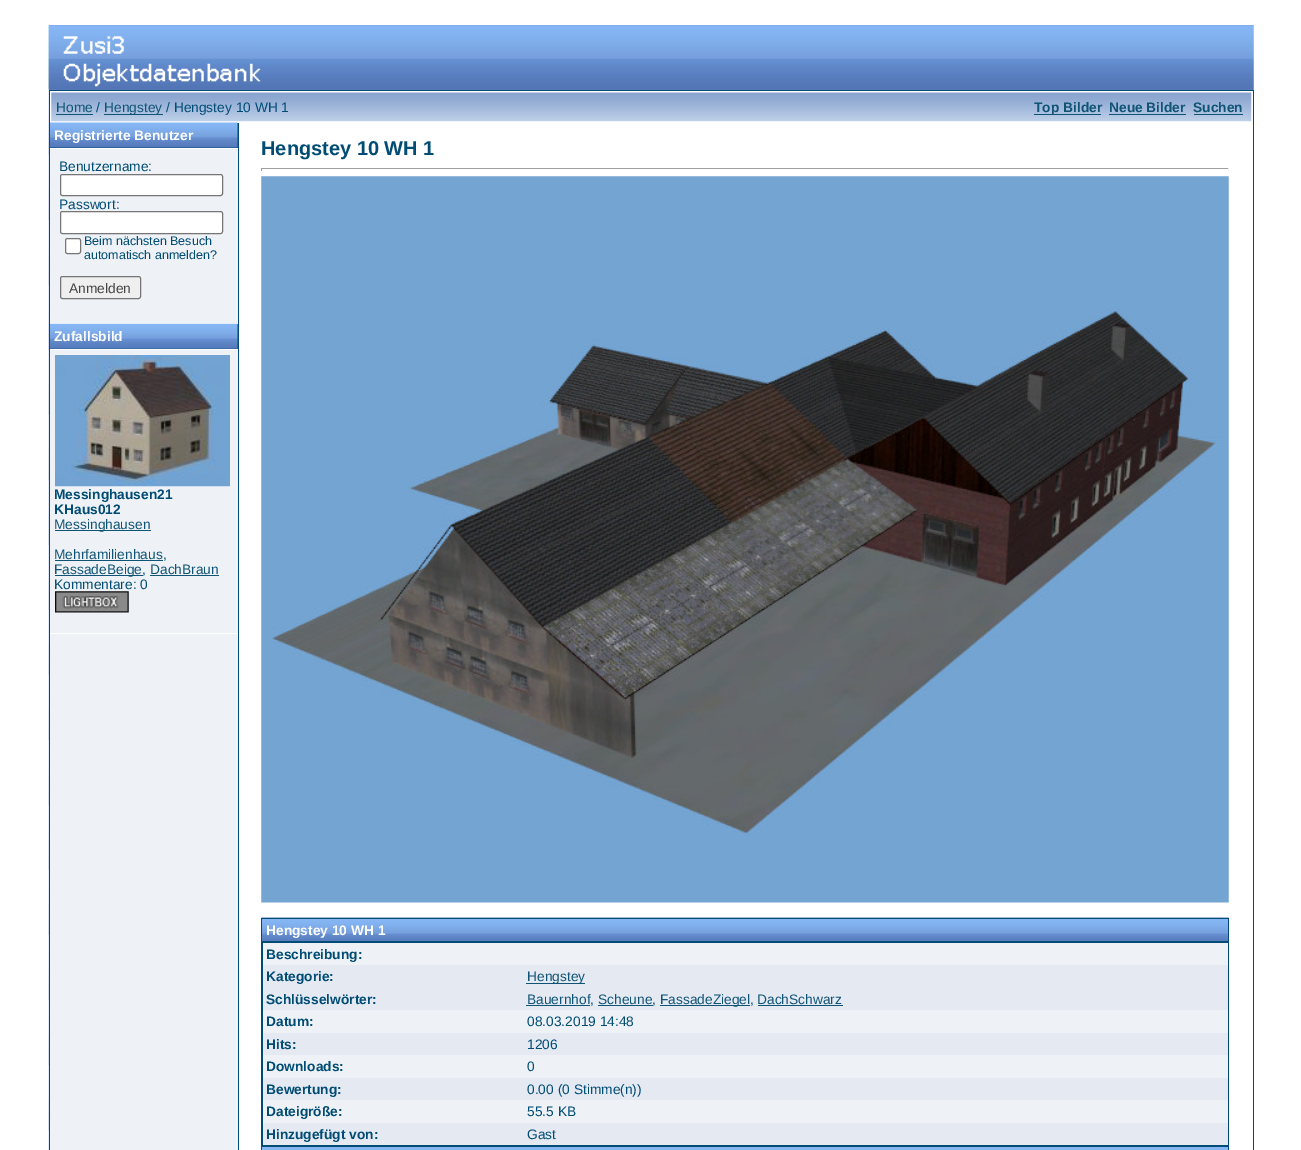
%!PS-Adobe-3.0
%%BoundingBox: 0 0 1301 1150
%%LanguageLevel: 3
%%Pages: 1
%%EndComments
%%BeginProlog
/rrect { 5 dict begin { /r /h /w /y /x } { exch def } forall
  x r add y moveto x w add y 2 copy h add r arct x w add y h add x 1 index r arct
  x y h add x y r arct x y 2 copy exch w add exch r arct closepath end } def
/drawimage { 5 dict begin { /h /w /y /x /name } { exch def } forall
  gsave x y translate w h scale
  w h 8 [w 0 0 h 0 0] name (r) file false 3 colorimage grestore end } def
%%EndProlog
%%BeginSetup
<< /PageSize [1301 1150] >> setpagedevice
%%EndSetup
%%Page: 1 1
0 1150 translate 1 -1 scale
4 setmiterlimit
1 setgray
0 0 1301 1150 rectfill
(images/1.raw) 48 25 1206 1125 drawimage
(images/2.raw) 48 26 213 63 drawimage
0 0.298 0.459 setrgbcolor
49 90 1205 1060 rectfill
1 setgray
50 91 1203 1059 rectfill
(images/3.raw) 51 92 1201 30 drawimage
0.059 0.329 0.459 setrgbcolor
56 114 37 1 rectfill
104 114 59 1 rectfill
1034 114 67 1 rectfill
1109 114 77 1 rectfill
1194 114 49 1 rectfill
0.933 0.945 0.965 setrgbcolor
50 149 188 1001 rectfill
0 0.298 0.459 setrgbcolor
50 123 188 25 rectfill
(images/4.raw) 50 122 188 26 drawimage
1 setgray
60.5 174.5 162 21 2 rrect gsave fill grestore
0.463 setgray
stroke
1 setgray
60.5 211.5 162 22 2 rrect gsave fill grestore
0.463 setgray
stroke
1 setgray
65.5 238.5 15 15 2 rrect gsave fill grestore
0.463 setgray
stroke
0.937 setgray
60.5 276.5 80 22 2 rrect gsave fill grestore
0.463 setgray
stroke
1 setgray
50 323 188 1 rectfill
0 0.298 0.459 setrgbcolor
50 324 188 25 rectfill
(images/5.raw) 50 323 188 26 drawimage
1 setgray
50 349 188 1 rectfill
(images/6.raw) 55 355 175 132 drawimage
0.059 0.329 0.459 setrgbcolor
55 530 96 1 rectfill
55 560 108 1 rectfill
55 575 88 1 rectfill
150 575 69 1 rectfill
(images/7.raw) 55 591 74 22 drawimage
1 setgray
50 633 188 1 rectfill
0 0.298 0.459 setrgbcolor
238 123 1 1027 rectfill
0.624 setgray
261 168 968 1 rectfill
0.933 setgray
1228 168 1 3 rectfill
0.624 setgray
261 168 1 3 rectfill
(images/8.raw) 261 176 968 727 drawimage
(images/9.raw) 261 917 968 24 drawimage
0 0.298 0.459 setrgbcolor
261 918 968 1 rectfill
1228 918 1 23 rectfill
261 918 1 23 rectfill
261 941 968 209 rectfill
0.933 0.945 0.965 setrgbcolor
263 943 965 22 rectfill
0.898 0.914 0.949 setrgbcolor
263 965 965 23 rectfill
0.059 0.329 0.459 setrgbcolor
526 983 59 1 rectfill
0.898 0.914 0.949 setrgbcolor
263 988 965 22 rectfill
0.059 0.329 0.459 setrgbcolor
526 1005 64 1 rectfill
598 1005 55 1 rectfill
660 1005 90 1 rectfill
758 1005 85 1 rectfill
0.933 0.945 0.965 setrgbcolor
263 1010 965 23 rectfill
0.898 0.914 0.949 setrgbcolor
263 1033 965 22 rectfill
0.933 0.945 0.965 setrgbcolor
263 1055 965 23 rectfill
0.898 0.914 0.949 setrgbcolor
263 1078 965 22 rectfill
0.933 0.945 0.965 setrgbcolor
263 1100 965 23 rectfill
0.898 0.914 0.949 setrgbcolor
263 1123 965 22 rectfill
0.525 0.718 0.957 setrgbcolor
262 1147 966 3 rectfill
/LiberationSans-Regular [13.75 0 0 -13.75 0 0] selectfont
0.059 0.329 0.459 setrgbcolor
56 112 moveto (Home) show
0 0.298 0.459 setrgbcolor
96 112 moveto (/) show
0.059 0.329 0.459 setrgbcolor
104 112 moveto (Hengstey) show
0 0.298 0.459 setrgbcolor
166 112 moveto (/ Hengstey 10 WH 1) show
/LiberationSans-Bold [13.75 0 0 -13.75 0 0] selectfont
0.059 0.329 0.459 setrgbcolor
1034 112 moveto (Top Bilder) show
1109 112 moveto (Neue Bilder) show
1193 112 moveto (Suchen) show
1 setgray
54 140 moveto (Registrierte Benutzer) show
/LiberationSans-Regular [13.75 0 0 -13.75 0 0] selectfont
0 0.298 0.459 setrgbcolor
59 171 moveto (Benutzername:) show
59 209 moveto (Passwort:) show
/LiberationSans-Regular [12.5 0 0 -12.5 0 0] selectfont
84 245 moveto (Beim nächsten Besuch) show
84 259 moveto (automatisch anmelden?) show
/LiberationSans-Regular [13.75 0 0 -13.75 0 0] selectfont
0.267 setgray
69 293 moveto (Anmelden) show
/LiberationSans-Bold [13.75 0 0 -13.75 0 0] selectfont
1 setgray
54 341 moveto (Zufallsbild) show
0 0.298 0.459 setrgbcolor
54 499 moveto (Messinghausen21) show
54 514 moveto (KHaus012) show
/LiberationSans-Regular [13.75 0 0 -13.75 0 0] selectfont
0.059 0.329 0.459 setrgbcolor
54 529 moveto (Messinghausen) show
54 559 moveto (Mehrfamilienhaus) show
0 0.298 0.459 setrgbcolor
163 559 moveto (,) show
0.059 0.329 0.459 setrgbcolor
54 574 moveto (FassadeBeige) show
0 0.298 0.459 setrgbcolor
142 574 moveto (,) show
0.059 0.329 0.459 setrgbcolor
150 574 moveto (DachBraun) show
0 0.298 0.459 setrgbcolor
54 589 moveto (Kommentare: 0) show
/LiberationSans-Bold [20 0 0 -20 0 0] selectfont
261 155 moveto (Hengstey 10 WH 1) show
/LiberationSans-Bold [13.75 0 0 -13.75 0 0] selectfont
1 setgray
266 935 moveto (Hengstey 10 WH 1) show
0 0.298 0.459 setrgbcolor
266 959 moveto (Beschreibung:) show
266 981 moveto (Kategorie:) show
/LiberationSans-Regular [13.75 0 0 -13.75 0 0] selectfont
0.059 0.329 0.459 setrgbcolor
527 981 moveto (Hengstey) show
/LiberationSans-Bold [13.75 0 0 -13.75 0 0] selectfont
0 0.298 0.459 setrgbcolor
266 1004 moveto (Schlüsselwörter:) show
/LiberationSans-Regular [13.75 0 0 -13.75 0 0] selectfont
0.059 0.329 0.459 setrgbcolor
527 1004 moveto (Bauernhof) show
0 0.298 0.459 setrgbcolor
590 1004 moveto (,) show
0.059 0.329 0.459 setrgbcolor
598 1004 moveto (Scheune) show
0 0.298 0.459 setrgbcolor
652 1004 moveto (,) show
0.059 0.329 0.459 setrgbcolor
660 1004 moveto (FassadeZiegel) show
0 0.298 0.459 setrgbcolor
750 1004 moveto (,) show
0.059 0.329 0.459 setrgbcolor
757 1004 moveto (DachSchwarz) show
/LiberationSans-Bold [13.75 0 0 -13.75 0 0] selectfont
0 0.298 0.459 setrgbcolor
266 1026 moveto (Datum:) show
/LiberationSans-Regular [13.75 0 0 -13.75 0 0] selectfont
527 1026 moveto (08.03.2019 14:48) show
/LiberationSans-Bold [13.75 0 0 -13.75 0 0] selectfont
266 1049 moveto (Hits:) show
/LiberationSans-Regular [13.75 0 0 -13.75 0 0] selectfont
527 1049 moveto (1206) show
/LiberationSans-Bold [13.75 0 0 -13.75 0 0] selectfont
266 1071 moveto (Downloads:) show
/LiberationSans-Regular [13.75 0 0 -13.75 0 0] selectfont
527 1071 moveto (0) show
/LiberationSans-Bold [13.75 0 0 -13.75 0 0] selectfont
266 1094 moveto (Bewertung:) show
/LiberationSans-Regular [13.75 0 0 -13.75 0 0] selectfont
527 1094 moveto (0.00 \(0 Stimme\(n\)\)) show
/LiberationSans-Bold [13.75 0 0 -13.75 0 0] selectfont
266 1116 moveto (Dateigröße:) show
/LiberationSans-Regular [13.75 0 0 -13.75 0 0] selectfont
527 1116 moveto (55.5 KB) show
/LiberationSans-Bold [13.75 0 0 -13.75 0 0] selectfont
266 1139 moveto (Hinzugefügt von:) show
/LiberationSans-Regular [13.75 0 0 -13.75 0 0] selectfont
527 1139 moveto (Gast) show
showpage
%%EOF
